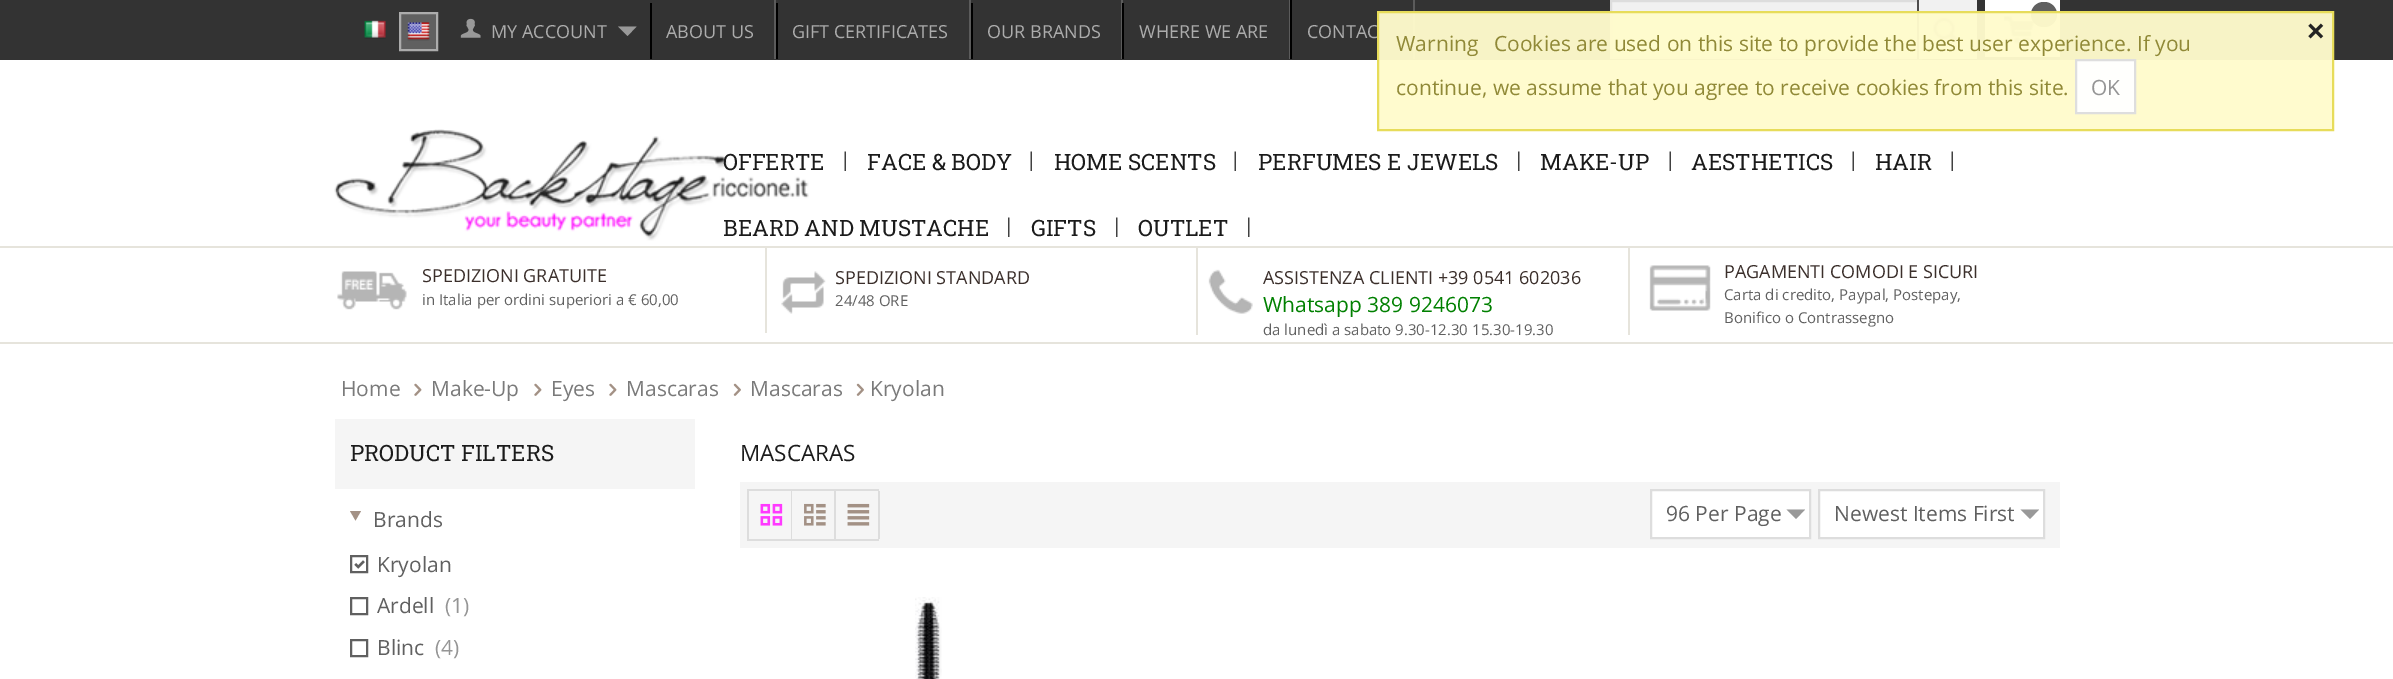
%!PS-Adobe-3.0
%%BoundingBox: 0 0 2393 679
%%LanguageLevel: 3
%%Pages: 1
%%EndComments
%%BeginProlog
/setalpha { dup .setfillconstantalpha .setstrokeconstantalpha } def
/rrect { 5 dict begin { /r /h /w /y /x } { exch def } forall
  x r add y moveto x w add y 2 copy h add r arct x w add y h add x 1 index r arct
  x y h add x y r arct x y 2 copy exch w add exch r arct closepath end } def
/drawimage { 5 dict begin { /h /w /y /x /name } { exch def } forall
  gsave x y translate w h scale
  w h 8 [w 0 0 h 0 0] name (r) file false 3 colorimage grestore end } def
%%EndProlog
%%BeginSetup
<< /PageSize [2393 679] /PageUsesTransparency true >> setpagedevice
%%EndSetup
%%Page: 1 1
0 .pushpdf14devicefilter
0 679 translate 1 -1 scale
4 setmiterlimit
1 setgray
0 0 2393 679 rectfill
0.2 setgray
0 0 2393 60 rectfill
(images/1.raw) 364 20 22 19 drawimage
0.376 setgray
newpath 400 13 moveto 437 13 lineto 437 50 lineto 400 50 lineto closepath gsave fill grestore
0.675 setgray
2 setlinewidth
stroke
(images/2.raw) 407 22 23 19 drawimage
(images/3.raw) 460 18 21 20 drawimage
0.6 setgray
newpath 627.5 36 moveto 618 26.5 lineto 636.5 26.5 lineto closepath fill
0 setgray
650 3 2 56 rectfill
0.357 setgray
774 0 2 59 rectfill
0 setgray
776 3 2 56 rectfill
0.357 setgray
969 0 2 59 rectfill
0 setgray
971 3 2 56 rectfill
0.357 setgray
1121 0 2 59 rectfill
0 setgray
1122 3 2 56 rectfill
0.357 setgray
1289 0 1 59 rectfill
1413 0 2 59 rectfill
0 setgray
1290 0 2 59 rectfill
0.945 setgray
1612 2 305 55 rectfill
0.867 setgray
1611 1 310 57 rectstroke
0.945 setgray
1919 0 58 59 rectfill
(images/4.raw) 1933 17 25 26 drawimage
0.306 0.302 0.302 setrgbcolor
1917 0 2 59 rectfill
1 setgray
1985 0 75 57 rectfill
(images/5.raw) 2003 16 32 28 drawimage
0.376 setgray
2031 2 26 25 12.5 rrect fill
(images/6.raw) 334 129 475 112 drawimage
(images/7.raw) 844 151 2 20 drawimage
(images/7.raw) 1030 151 2 20 drawimage
(images/7.raw) 1234 151 2 20 drawimage
(images/8.raw) 1518 151 2 20 drawimage
(images/7.raw) 1669 151 2 20 drawimage
(images/7.raw) 1852 151 2 20 drawimage
(images/7.raw) 1951 151 2 20 drawimage
(images/8.raw) 1008 217 2 20 drawimage
(images/8.raw) 1116 217 2 20 drawimage
(images/8.raw) 1248 217 2 20 drawimage
0.902 0.894 0.863 setrgbcolor
0 246 2393 2 rectfill
0 342 2393 2 rectfill
765 248 2 85 rectfill
(images/9.raw) 337 271 70 39 drawimage
1196 248 2 87 rectfill
(images/10.raw) 781 271 45 43 drawimage
1628 248 2 87 rectfill
(images/11.raw) 1208 269 45 45 drawimage
(images/12.raw) 1649 265 62 46 drawimage
(images/13.raw) 414 383 8 13 drawimage
(images/13.raw) 534 383 8 13 drawimage
(images/13.raw) 609 383 8 13 drawimage
(images/14.raw) 733 383 8 13 drawimage
(images/14.raw) 856 383 8 13 drawimage
0.961 setgray
335 419 360 70 rectfill
0.639 0.569 0.522 setrgbcolor
newpath 361 511 moveto 355.5 520.5 lineto 350 511 lineto closepath fill
0.376 setgray
351 556 16 16 rectstroke
(images/15.raw) 354 560 11 9 drawimage
351 598 16 16 rectstroke
351 640 16 16 rectstroke
0.961 setgray
740 482 1320 66 rectfill
0.867 setgray
747 489 132 2 rectfill
747 539 132 2 rectfill
747 489 2 51 rectfill
791 491 1 48 rectfill
(images/16.raw) 760 503 23 23 drawimage
834 491 2 48 rectfill
(images/17.raw) 804 503 22 23 drawimage
878 491 2 48 rectfill
(images/18.raw) 847 503 23 23 drawimage
1 setgray
newpath 1651 490 moveto 1810 490 lineto 1810 538 lineto 1651 538 lineto closepath gsave fill grestore
0.867 setgray
stroke
0.6 setgray
newpath 1796 519 moveto 1786.5 509.5 lineto 1805 509.5 lineto closepath fill
1 setgray
newpath 1819 490 moveto 2044 490 lineto 2044 538 lineto 1819 538 lineto closepath gsave fill grestore
0.867 setgray
stroke
0.6 setgray
newpath 2030 519 moveto 2020.5 509.5 lineto 2039 509.5 lineto closepath fill
(images/19.raw) 915 597 27 82 drawimage
/OpenSans-Regular [18 0 0 -18 0 0] selectfont
0.675 setgray
491 38 moveto (MY ACCOUNT) show
666 38 moveto (ABOUT US) show
792 38 moveto (GIFT CERTIFICATES) show
987 38 moveto (OUR BRANDS) show
1139 38 moveto (WHERE WE ARE) show
1307 38 moveto (CONTAC) show
0.96 setalpha
1 0.984 0.8 setrgbcolor
1377 11 957 120 rectfill
0.902 0.859 0.333 setrgbcolor
1378 12 955 118 rectstroke
/LiberationSans-Bold [30 0 0 -30 0 0] selectfont
1 setalpha
0.141 setgray
2307 41 moveto (×) show
0.96 setalpha
1 setgray
newpath 2076 60 moveto 2135 60 lineto 2135 113 lineto 2076 113 lineto closepath fill
1 setalpha
0.871 setgray
newpath 2076 60 moveto 2135 60 lineto 2135 113 lineto 2076 113 lineto closepath stroke
/OpenSans-Regular [21 0 0 -21 0 0] selectfont
0.584 setgray
2091 95 moveto (OK) show
0.565 0.537 0.216 setrgbcolor
1396 95 moveto (continue, we assume that you agree to receive cookies from this site.) show
1494 51 moveto (Cookies are used on this site to provide the best user experience. If you) show
1396 51 moveto (Warning) show
/RobotoSlab-Regular [22.5 0 0 -22.5 0 0] selectfont
0.106 setgray
723 170 moveto (OFFERTE) show
867 170 moveto (FACE & BODY) show
1054 170 moveto (HOME SCENTS) show
1258 170 moveto (PERFUMES E JEWELS) show
1540 170 moveto (MAKE-UP) show
1691 170 moveto (AESTHETICS) show
1875 170 moveto (HAIR) show
723 236 moveto (BEARD AND MUSTACHE) show
1031 236 moveto (GIFTS) show
1138 236 moveto (OUTLET) show
/OpenSans-Regular [18 0 0 -18 0 0] selectfont
0.231 0.184 0.169 setrgbcolor
422 282 moveto (SPEDIZIONI GRATUITE) show
/OpenSans-Regular [15 0 0 -15 0 0] selectfont
0.376 setgray
422 305 moveto (in Italia per ordini superiori a € 60,00) show
/OpenSans-Regular [18 0 0 -18 0 0] selectfont
0.231 0.184 0.169 setrgbcolor
835 284 moveto (SPEDIZIONI STANDARD) show
/OpenSans-Regular [15 0 0 -15 0 0] selectfont
0.376 setgray
835 306 moveto (24/48 ORE) show
/OpenSans-Regular [18 0 0 -18 0 0] selectfont
0.231 0.184 0.169 setrgbcolor
1263 284 moveto (ASSISTENZA CLIENTI +39 0541 602036) show
/OpenSans-Regular [21 0 0 -21 0 0] selectfont
0 0.502 0 setrgbcolor
1263 312 moveto (Whatsapp 389 9246073) show
/OpenSans-Regular [15 0 0 -15 0 0] selectfont
0.376 setgray
1263 335 moveto (da lunedì a sabato 9.30-12.30 15.30-19.30) show
/OpenSans-Regular [18 0 0 -18 0 0] selectfont
0.231 0.184 0.169 setrgbcolor
1724 278 moveto (PAGAMENTI COMODI E SICURI) show
/OpenSans-Regular [15 0 0 -15 0 0] selectfont
0.376 setgray
1724 300 moveto (Carta di credito, Paypal, Postepay,) show
1724 323 moveto (Bonifico o Contrassegno) show
/OpenSans-Regular [21 0 0 -21 0 0] selectfont
0.478 setgray
341 396 moveto (Home) show
431 396 moveto (Make-Up) show
551 396 moveto (Eyes) show
626 396 moveto (Mascaras) show
750 396 moveto (Mascaras) show
870 396 moveto (Kryolan) show
/RobotoSlab-Regular [22.5 0 0 -22.5 0 0] selectfont
0.106 setgray
350 461 moveto (PRODUCT FILTERS) show
/OpenSans-Regular [21 0 0 -21 0 0] selectfont
0.376 setgray
373 527 moveto (Brands) show
377 572 moveto (Kryolan) show
377 613 moveto (Ardell) show
0.584 setgray
445 613 moveto (\(1\)) show
0.376 setgray
377 655 moveto (Blinc) show
0.584 setgray
435 655 moveto (\(4\)) show
/OpenSans-Regular [22.5 0 0 -22.5 0 0] selectfont
0.106 setgray
740 461 moveto (MASCARAS) show
/OpenSans-Regular [21 0 0 -21 0 0] selectfont
0.376 setgray
1666 521 moveto (96 Per Page) show
1834 521 moveto (Newest Items First) show
.poppdf14devicefilter showpage
%%EOF
